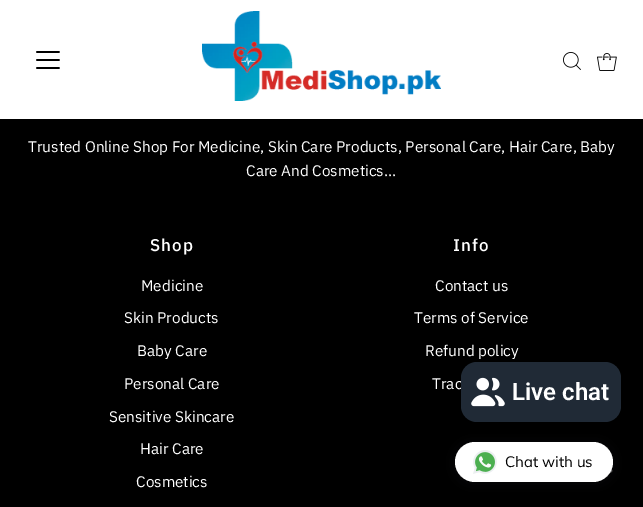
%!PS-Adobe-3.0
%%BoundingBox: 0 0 643 507
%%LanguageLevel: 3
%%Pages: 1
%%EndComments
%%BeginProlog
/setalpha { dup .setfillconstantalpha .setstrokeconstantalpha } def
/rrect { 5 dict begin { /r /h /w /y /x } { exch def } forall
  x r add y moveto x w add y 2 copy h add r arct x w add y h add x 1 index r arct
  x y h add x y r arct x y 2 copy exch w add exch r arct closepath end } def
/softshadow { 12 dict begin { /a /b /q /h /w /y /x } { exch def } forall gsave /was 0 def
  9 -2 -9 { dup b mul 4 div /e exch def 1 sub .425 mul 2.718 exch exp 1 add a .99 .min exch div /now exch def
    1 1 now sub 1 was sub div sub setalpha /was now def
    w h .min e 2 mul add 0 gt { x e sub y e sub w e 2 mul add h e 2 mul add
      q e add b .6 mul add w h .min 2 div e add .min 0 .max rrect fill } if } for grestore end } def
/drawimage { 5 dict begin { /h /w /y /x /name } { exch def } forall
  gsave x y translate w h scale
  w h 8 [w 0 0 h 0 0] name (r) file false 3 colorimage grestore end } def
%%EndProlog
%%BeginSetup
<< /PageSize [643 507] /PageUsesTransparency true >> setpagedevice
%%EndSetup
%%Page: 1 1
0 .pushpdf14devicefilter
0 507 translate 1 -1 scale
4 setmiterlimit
0 setgray
0 0 643 507 rectfill
1 setgray
0 0 643 119 rectfill
(images/1.raw) 36 51 24 18 drawimage
(images/2.raw) 202 11 239 90 drawimage
(images/3.raw) 563 52 18 18 drawimage
(images/4.raw) 597 53 20 18 drawimage
0.4 setgray
newpath 603 461 moveto 593 471 lineto 595 473 lineto 603 465.5 lineto 610.5 473 lineto 612.5 471 lineto closepath fill
0 setgray
461 362 160 60 16 2.5 0.15 softshadow
/IBMPlexSans-Regular [15.3 0 0 -15.3 0 0] selectfont
1 setgray
28 152 moveto (Trusted Online Shop For Medicine, Skin Care Products, Personal Care, Hair Care, Baby) show
246 176 moveto (Care And Cosmetics...) show
/IBMPlexSans-Medium [17 0 0 -17 0 0] selectfont
150 251 moveto 1 0 (Shop) ashow
/IBMPlexSans-Regular [15.3 0 0 -15.3 0 0] selectfont
141 291 moveto (Medicine) show
124 323 moveto (Skin Products) show
137 356 moveto (Baby Care) show
124 389 moveto (Personal Care) show
109 422 moveto (Sensitive Skincare) show
140 454 moveto (Hair Care) show
136 487 moveto (Cosmetics) show
/IBMPlexSans-Medium [17 0 0 -17 0 0] selectfont
453 251 moveto 1 0 (Info) ashow
/IBMPlexSans-Regular [15.3 0 0 -15.3 0 0] selectfont
435 291 moveto (Contact us) show
414 323 moveto (Terms of Service) show
425 356 moveto (Refund policy) show
432 389 moveto (Trac) show
0.125 0.165 0.212 setrgbcolor
461 362 160 60 16 rrect fill
(images/5.raw) 471 377 34 30 drawimage
/Roboto-SemiBold [24 0 0 -24 0 0] selectfont
1 setgray
512 400 moveto (Live chat) show
0.125 0.129 0.141 setrgbcolor
455 443 158 40 20 7.5 0.28 softshadow
1 setgray
455 442 158 40 20 rrect fill
(images/6.raw) 473 450 24 24 drawimage
/Muli-Regular [15 0 0 -15 0 0] selectfont
0 setgray
505 467 moveto (Chat with us) show
.poppdf14devicefilter showpage
%%EOF
